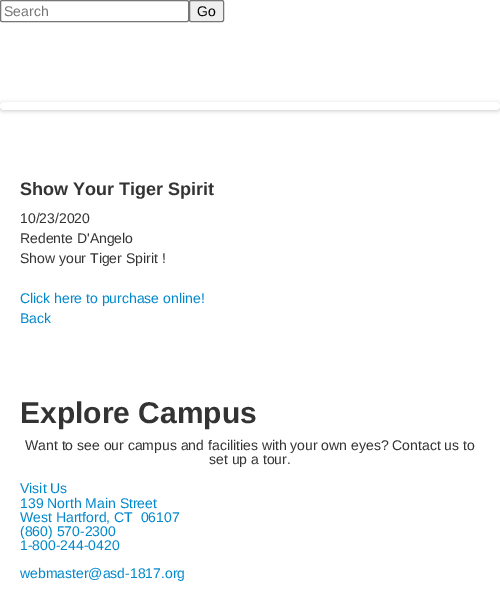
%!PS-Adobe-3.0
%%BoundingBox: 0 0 500 612
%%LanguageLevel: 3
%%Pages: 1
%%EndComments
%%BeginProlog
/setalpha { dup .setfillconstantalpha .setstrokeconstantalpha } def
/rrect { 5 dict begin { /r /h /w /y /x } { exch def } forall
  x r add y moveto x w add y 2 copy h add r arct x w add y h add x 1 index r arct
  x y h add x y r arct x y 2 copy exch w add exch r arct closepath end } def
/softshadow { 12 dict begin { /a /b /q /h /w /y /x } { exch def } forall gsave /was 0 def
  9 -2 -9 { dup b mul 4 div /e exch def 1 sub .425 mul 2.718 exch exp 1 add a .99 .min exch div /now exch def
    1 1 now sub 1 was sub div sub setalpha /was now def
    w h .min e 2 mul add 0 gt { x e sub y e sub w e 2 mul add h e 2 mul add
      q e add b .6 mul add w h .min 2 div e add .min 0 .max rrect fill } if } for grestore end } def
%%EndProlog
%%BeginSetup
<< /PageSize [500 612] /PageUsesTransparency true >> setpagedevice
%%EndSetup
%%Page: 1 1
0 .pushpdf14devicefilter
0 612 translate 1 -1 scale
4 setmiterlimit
1 setgray
0 0 500 612 rectfill
0.463 setgray
0.5 0.5 188 21 1.5 rrect stroke
0.937 setgray
189.5 0.5 34 21 1.5 rrect gsave fill grestore
0.463 setgray
stroke
0 setgray
0 103 500 8 4 2 0.2 softshadow
1 setgray
0 102 500 8 4 rrect fill
/LiberationSans-Regular [14 0 0 -14 0 0] selectfont
0.459 setgray
4 16 moveto (Search) show
0 setgray
197 16 moveto (Go) show
/LiberationSans-Bold [18 0 0 -18 0 0] selectfont
0.2 setgray
20 195 moveto (Show Your Tiger Spirit) show
/LiberationSans-Regular [14 0 0 -14 0 0] selectfont
20 223 moveto (10/23/2020) show
20 243 moveto (Redente D'Angelo) show
20 263 moveto (Show your Tiger Spirit !) show
0 0.533 0.8 setrgbcolor
20 303 moveto (Click here to purchase online!) show
20 323 moveto (Back) show
/LiberationSans-Bold [30 0 0 -30 0 0] selectfont
0.2 setgray
20 423 moveto (Explore Campus) show
/LiberationSans-Regular [14 0 0 -14 0 0] selectfont
25 450 moveto (Want to see our campus and facilities with your own eyes? Contact us to) show
209 464 moveto (set up a tour.) show
0 0.533 0.8 setrgbcolor
20 493 moveto (Visit Us) show
20 508 moveto (139 North Main Street) show
20 522 moveto (West Hartford, CT  06107) show
20 536 moveto (\(860\) 570-2300) show
20 550 moveto (1-800-244-0420) show
20 578 moveto (webmaster@asd-1817.org) show
.poppdf14devicefilter showpage
%%EOF
